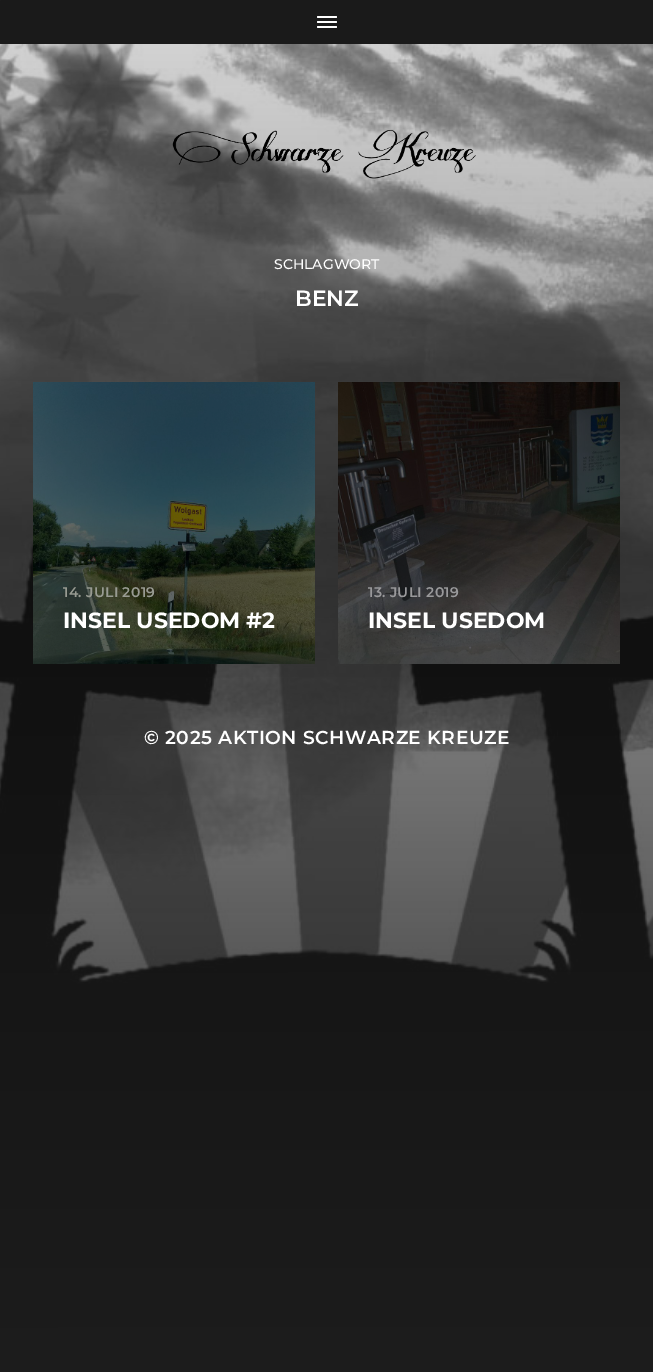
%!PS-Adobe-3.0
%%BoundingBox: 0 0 653 1372
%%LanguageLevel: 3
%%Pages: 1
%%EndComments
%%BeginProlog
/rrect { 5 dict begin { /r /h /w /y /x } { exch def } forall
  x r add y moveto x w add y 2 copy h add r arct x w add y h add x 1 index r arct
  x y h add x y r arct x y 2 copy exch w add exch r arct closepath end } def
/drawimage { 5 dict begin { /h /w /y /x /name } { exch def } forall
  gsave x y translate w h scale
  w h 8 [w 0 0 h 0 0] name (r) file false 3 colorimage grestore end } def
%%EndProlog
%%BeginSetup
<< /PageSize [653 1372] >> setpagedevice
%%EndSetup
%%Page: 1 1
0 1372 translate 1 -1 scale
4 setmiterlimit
0.114 setgray
0 0 653 1372 rectfill
0.102 setgray
0 0 653 44 3 rrect fill
1 setgray
317 16 20 2 1 rrect fill
317 21 20 2 1 rrect fill
317 26 20 2 1 rrect fill
(images/1.raw) 0 44 653 1328 drawimage
(images/2.raw) 172 130 304 49 drawimage
(images/3.raw) 33 382 282 282 drawimage
(images/4.raw) 338 382 282 282 drawimage
/Montserrat-Thin [14 0 0 -14 0 0] selectfont
274 269 moveto (SCHLAGWORT) show
/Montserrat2-Thin [22 0 0 -22 0 0] selectfont
295 306 moveto (BENZ) show
/Montserrat2-Thin [14 0 0 -14 0 0] selectfont
0.596 0.608 0.573 setrgbcolor
63 597 moveto 0.25 0 (14. JULI 2019) ashow
/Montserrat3-Thin [22 0 0 -22 0 0] selectfont
1 setgray
63 628 moveto (INSEL USEDOM #2) show
/Montserrat2-Thin [14 0 0 -14 0 0] selectfont
0.6 0.6 0.608 setrgbcolor
368 597 moveto 0.25 0 (13. JULI 2019) ashow
/Montserrat3-Thin [22 0 0 -22 0 0] selectfont
1 setgray
368 628 moveto (INSEL USEDOM) show
/Montserrat2-Thin [18.75 0 0 -18.75 0 0] selectfont
144 744 moveto 0.5 0 (© 2025 AKTION SCHWARZE KREUZE) ashow
showpage
%%EOF
